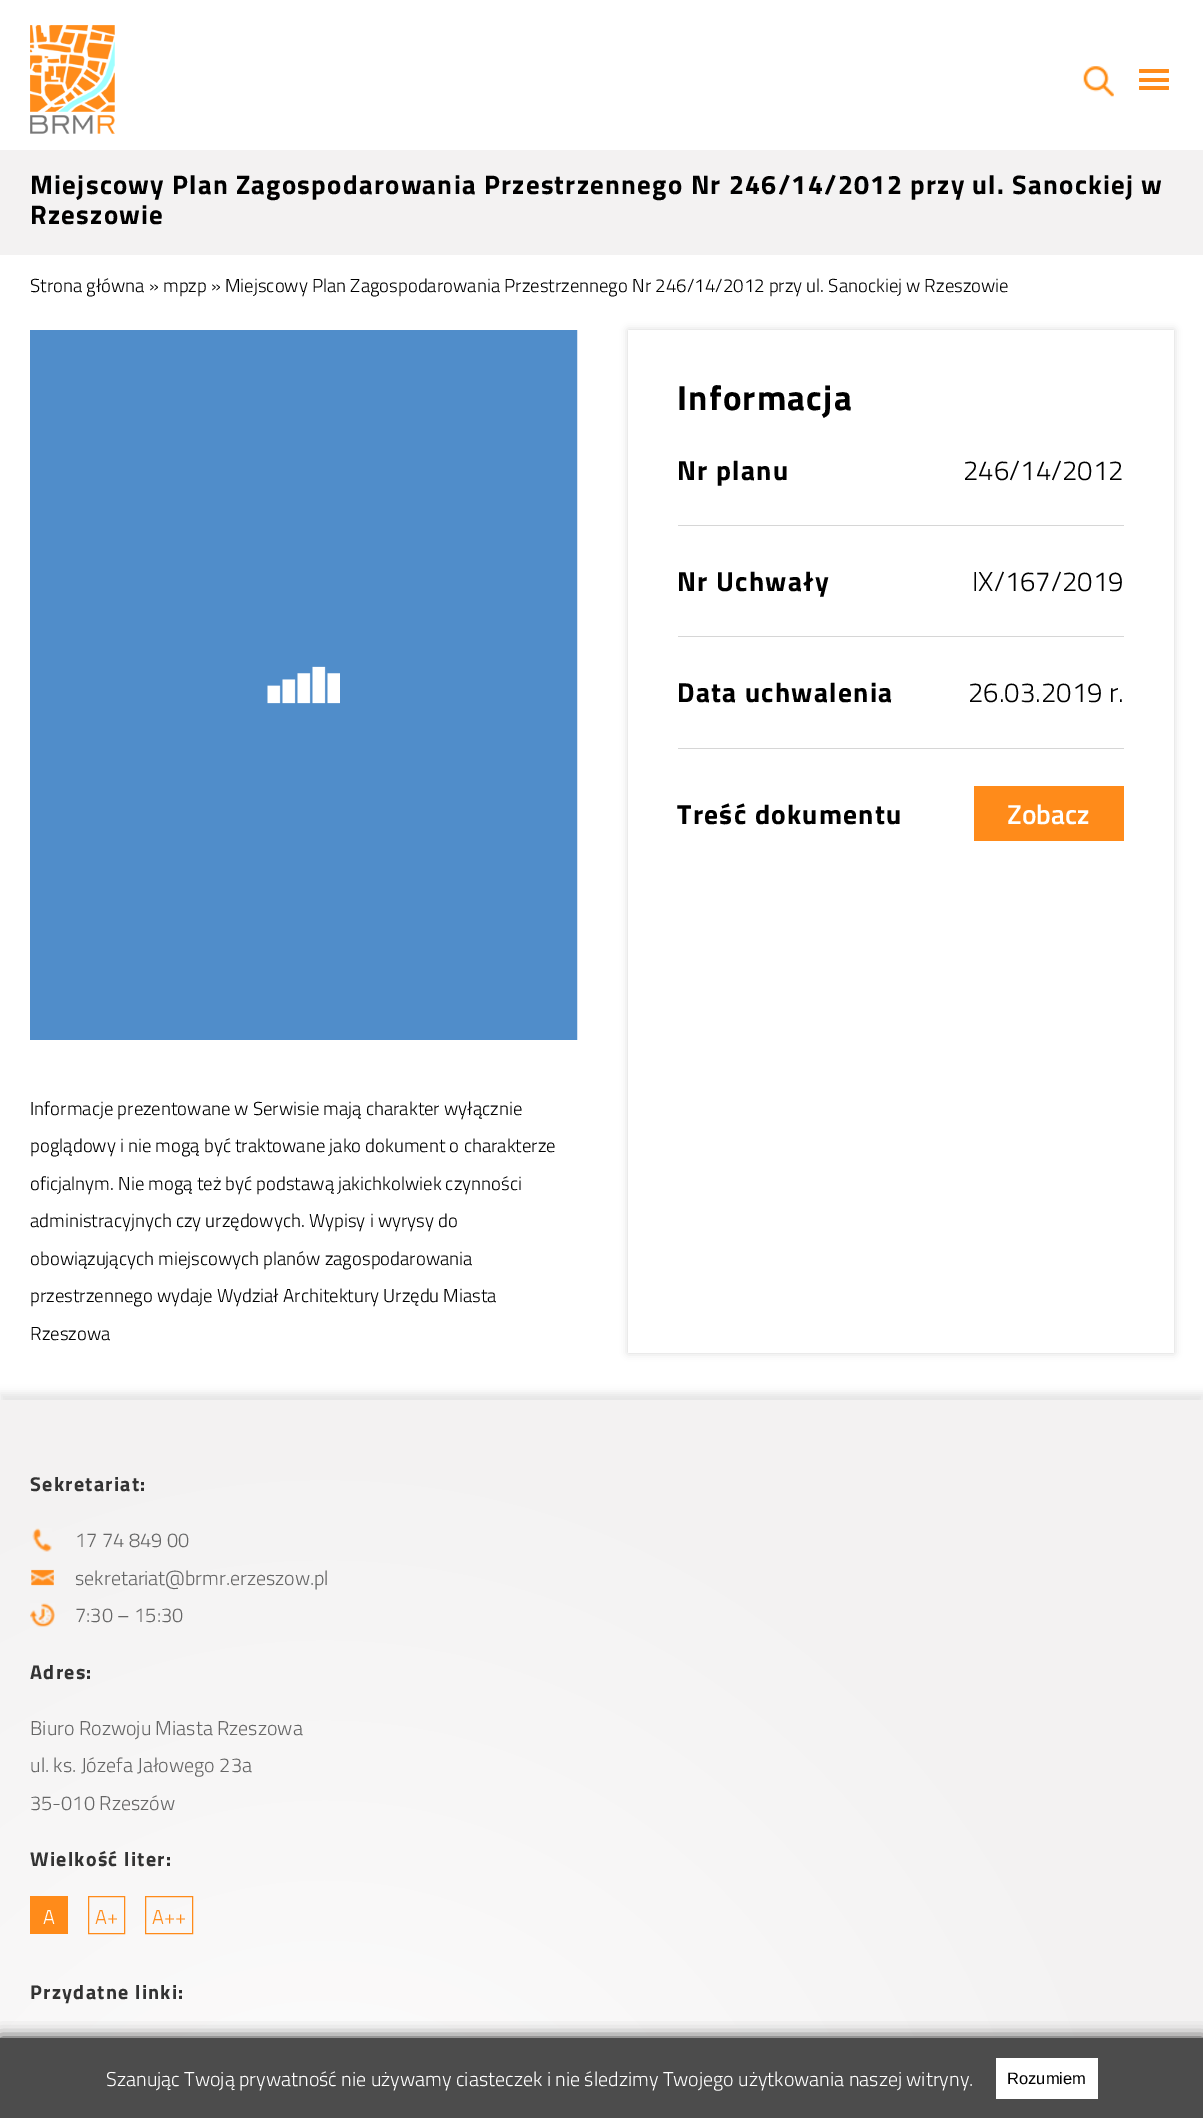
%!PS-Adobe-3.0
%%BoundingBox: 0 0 1203 2118
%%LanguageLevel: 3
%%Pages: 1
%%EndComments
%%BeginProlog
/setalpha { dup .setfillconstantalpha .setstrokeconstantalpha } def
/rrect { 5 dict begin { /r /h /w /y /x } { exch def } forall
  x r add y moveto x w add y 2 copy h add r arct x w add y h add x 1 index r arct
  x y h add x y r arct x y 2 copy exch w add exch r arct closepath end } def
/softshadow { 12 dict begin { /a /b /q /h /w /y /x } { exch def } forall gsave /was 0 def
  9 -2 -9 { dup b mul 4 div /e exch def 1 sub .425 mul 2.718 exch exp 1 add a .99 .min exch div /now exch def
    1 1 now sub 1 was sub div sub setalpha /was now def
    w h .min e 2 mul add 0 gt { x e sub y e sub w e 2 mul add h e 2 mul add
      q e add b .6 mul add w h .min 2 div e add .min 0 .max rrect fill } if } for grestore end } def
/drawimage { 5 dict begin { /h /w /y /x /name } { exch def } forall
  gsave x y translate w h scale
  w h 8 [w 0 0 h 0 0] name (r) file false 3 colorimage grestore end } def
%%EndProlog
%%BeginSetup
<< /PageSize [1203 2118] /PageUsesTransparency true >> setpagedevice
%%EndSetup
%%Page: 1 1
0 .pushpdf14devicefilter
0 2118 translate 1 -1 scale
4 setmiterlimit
1 setgray
0 0 1203 2118 rectfill
(images/1.raw) 30 25 85 109 drawimage
(images/2.raw) 1083 66 31 31 drawimage
1 0.545 0.102 setrgbcolor
1139 69 30 4 1 rrect fill
1139 78 30 4 1 rrect fill
1139 86 30 4 1 rrect fill
0.953 0.949 0.949 setrgbcolor
0 150 1203 105 rectfill
(images/3.raw) 30 330 548 710 drawimage
gsave
newpath 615 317 moveto 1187 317 lineto 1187 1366 lineto 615 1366 lineto closepath 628 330 moveto 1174 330 lineto 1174 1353 lineto 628 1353 lineto closepath eoclip newpath
0 setgray
628 330 546 1023 0 4 0.16 softshadow
grestore
0.839 setgray
678 525 446 1 rectfill
678 636 446 1 rectfill
678 748 446 1 rectfill
1 0.545 0.102 setrgbcolor
974 786 150 55 rectfill
0.482 setgray
0 1393 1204 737 0 4 0.2 softshadow
gsave newpath 0 1400 moveto 1203 1400 lineto 1203 2038 lineto 0 2038 lineto closepath clip newpath 325 2361 translate 879 961 scale
<< /ShadingType 3 /ColorSpace /DeviceRGB /Coords [0 0 0 0 0 1] /Extend [true true] /Function << /FunctionType 2 /Domain [0 1] /C0 [1 1 1] /C1 [0.953 0.949 0.949] /N 1 >> >> shfill grestore
(images/4.raw) 32 1528 20 24 drawimage
(images/5.raw) 31 1569 23 17 drawimage
(images/6.raw) 30 1603 25 24 drawimage
1 0.545 0.102 setrgbcolor
30 1896 38 38 rectfill
88.5 1896.5 36 37 rectstroke
145.5 1896.5 47 37 rectstroke
0 setgray
0 2038 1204 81 0 7.5 0.8 softshadow
0.298 setgray
0 2038 1203 80 rectfill
1 setgray
996 2058 102 41 rectfill
/TitilliumWeb-Bold [26.85 0 0 -26.85 0 0] selectfont
0 setgray
30 194 moveto 1.25 0 (Miejscowy Plan Zagospodarowania Przestrzennego Nr 246/14/2012 przy ul. Sanockiej w) ashow
30 224 moveto 1.25 0 (Rzeszowie) ashow
/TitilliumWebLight-Light [18.75 0 0 -18.75 0 0] selectfont
30 292 moveto (Strona główna » mpzp » Miejscowy Plan Zagospodarowania Przestrzennego Nr 246/14/2012 przy ul. Sanockiej w Rzeszowie) show
/TitilliumWeb-Bold [35 0 0 -35 0 0] selectfont
677 410 moveto 1.25 0 (Informacja) ashow
/TitilliumWeb-Bold [27.5 0 0 -27.5 0 0] selectfont
677 480 moveto 1.25 0 (Nr planu) ashow
/TitilliumWebLight-Light [27.5 0 0 -27.5 0 0] selectfont
963 480 moveto (246/14/2012) show
/TitilliumWeb-Bold [27.5 0 0 -27.5 0 0] selectfont
677 591 moveto 1.25 0 (Nr Uchwały) ashow
/TitilliumWebLight-Light [27.5 0 0 -27.5 0 0] selectfont
972 591 moveto (IX/167/2019) show
/TitilliumWeb-Bold [27.5 0 0 -27.5 0 0] selectfont
677 702 moveto 1.25 0 (Data uchwalenia) ashow
/TitilliumWebLight-Light [27.5 0 0 -27.5 0 0] selectfont
968 702 moveto (26.03.2019 r.) show
/TitilliumWeb-Bold [27.5 0 0 -27.5 0 0] selectfont
677 824 moveto 1.25 0 (Treść dokumentu) ashow
/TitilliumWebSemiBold-SemiBold [27.5 0 0 -27.5 0 0] selectfont
1 setgray
1007 824 moveto (Zobacz) show
/TitilliumWebLight-Light [18.75 0 0 -18.75 0 0] selectfont
0 setgray
30 1115 moveto (Informacje prezentowane w Serwisie mają charakter wyłącznie) show
30 1152 moveto (poglądowy i nie mogą być traktowane jako dokument o charakterze) show
30 1190 moveto (oficjalnym. Nie mogą też być podstawą jakichkolwiek czynności) show
30 1227 moveto (administracyjnych czy urzędowych. Wypisy i wyrysy do) show
30 1265 moveto (obowiązujących miejscowych planów zagospodarowania) show
30 1302 moveto (przestrzennego wydaje Wydział Architektury Urzędu Miasta) show
30 1340 moveto (Rzeszowa) show
/TitilliumWeb-Bold [20 0 0 -20 0 0] selectfont
0.2 setgray
30 1491 moveto 1.25 0 (Sekretariat:) ashow
/TitilliumWebLight-Light [20 0 0 -20 0 0] selectfont
0.4 setgray
75 1547 moveto (17 74 849 00) show
75 1585 moveto (sekretariat@brmr.erzeszow.pl) show
75 1622 moveto (7:30 – 15:30) show
/TitilliumWeb-Bold [20 0 0 -20 0 0] selectfont
0.2 setgray
30 1679 moveto 1.25 0 (Adres:) ashow
/TitilliumWebLight-Light [20 0 0 -20 0 0] selectfont
0.4 setgray
30 1735 moveto (Biuro Rozwoju Miasta Rzeszowa) show
30 1772 moveto (ul. ks. Józefa Jałowego 23a) show
30 1810 moveto (35-010 Rzeszów) show
/TitilliumWeb-Bold [20 0 0 -20 0 0] selectfont
0.2 setgray
30 1866 moveto 1.25 0 (Wielkość liter:) ashow
/TitilliumWebLight-Light [20 0 0 -20 0 0] selectfont
1 setgray
43 1924 moveto (A) show
1 0.545 0.102 setrgbcolor
95 1924 moveto (A+) show
152 1924 moveto (A++) show
/TitilliumWeb-Bold [20 0 0 -20 0 0] selectfont
0.2 setgray
30 1999 moveto 1.25 0 (Przydatne linki:) ashow
/TitilliumWebLight-Light [20 0 0 -20 0 0] selectfont
1 setgray
106 2086 moveto (Szanując Twoją prywatność nie używamy ciasteczek i nie śledzimy Twojego użytkowania naszej witryny.) show
/LiberationSans-Regular [16.5 0 0 -16.5 0 0] selectfont
0 setgray
1007 2084 moveto (Rozumiem) show
.poppdf14devicefilter showpage
%%EOF
